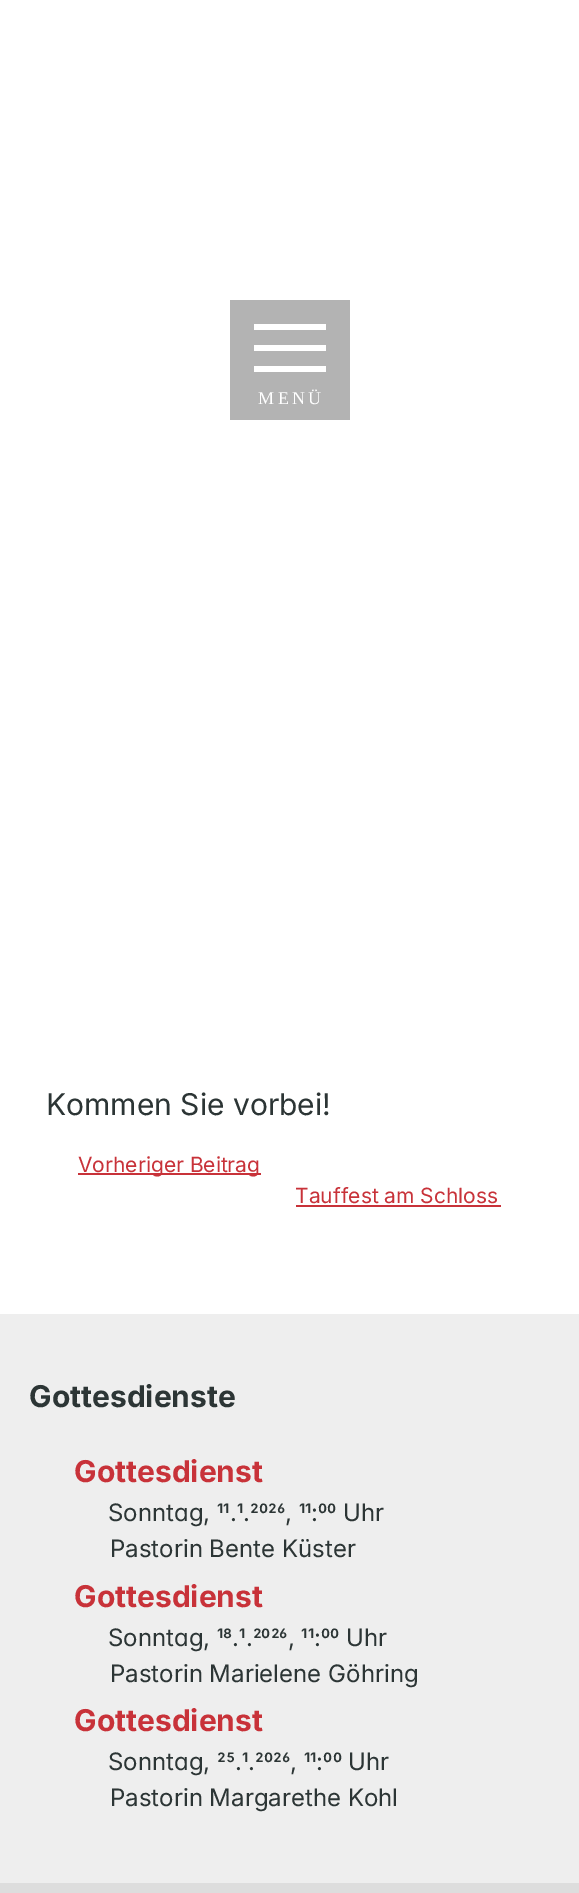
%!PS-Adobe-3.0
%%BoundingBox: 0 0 579 1893
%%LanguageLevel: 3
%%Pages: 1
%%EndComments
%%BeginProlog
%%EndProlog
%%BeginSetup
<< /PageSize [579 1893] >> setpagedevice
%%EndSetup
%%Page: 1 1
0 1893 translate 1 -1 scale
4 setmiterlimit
1 setgray
0 0 579 1893 rectfill
0.702 setgray
230 300 120 120 rectfill
1 setgray
254 324 72 6 rectfill
254 345 72 6 rectfill
254 366 72 6 rectfill
0.784 0.196 0.224 setrgbcolor
78 1173 183 2 rectfill
296 1205 205 2 rectfill
0.933 setgray
0 1314 579 569 rectfill
0.867 setgray
0 1883 579 10 rectfill
/LiberationSerif-Regular [18 0 0 -18 0 0] selectfont
1 setgray
258 404 moveto 3.5 0 (MENÜ) ashow
/Inter-Regular [30 0 0 -30 0 0] selectfont
0.173 0.208 0.208 setrgbcolor
46 1115 moveto (Kommen Sie vorbei!) show
/Inter-Regular [21 0 0 -21 0 0] selectfont
0.784 0.196 0.224 setrgbcolor
78 1172 moveto (Vorheriger Beitrag) show
295 1203 moveto (Tauffest am Schloss) show
/Inter-Bold [30 0 0 -30 0 0] selectfont
0.173 0.208 0.208 setrgbcolor
29 1407 moveto (Gottesdienste) show
0.784 0.196 0.224 setrgbcolor
74 1482 moveto (Gottesdienst) show
/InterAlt-Regular [24 0 0 -24 0 0] selectfont
0.173 0.208 0.208 setrgbcolor
108 1521 moveto (Sonntag, 11.1.2026, 11:00 Uhr) show
/Inter-Regular [24 0 0 -24 0 0] selectfont
110 1557 moveto (Pastorin Bente Küster) show
/Inter-Bold [30 0 0 -30 0 0] selectfont
0.784 0.196 0.224 setrgbcolor
74 1607 moveto (Gottesdienst) show
/InterAlt-Regular [24 0 0 -24 0 0] selectfont
0.173 0.208 0.208 setrgbcolor
108 1646 moveto (Sonntag, 18.1.2026, 11:00 Uhr) show
/Inter-Regular [24 0 0 -24 0 0] selectfont
110 1682 moveto (Pastorin Marielene Göhring) show
/Inter-Bold [30 0 0 -30 0 0] selectfont
0.784 0.196 0.224 setrgbcolor
74 1731 moveto (Gottesdienst) show
/InterAlt-Regular [24 0 0 -24 0 0] selectfont
0.173 0.208 0.208 setrgbcolor
108 1770 moveto (Sonntag, 25.1.2026, 11:00 Uhr) show
/Inter-Regular [24 0 0 -24 0 0] selectfont
110 1806 moveto (Pastorin Margarethe Kohl) show
showpage
%%EOF
